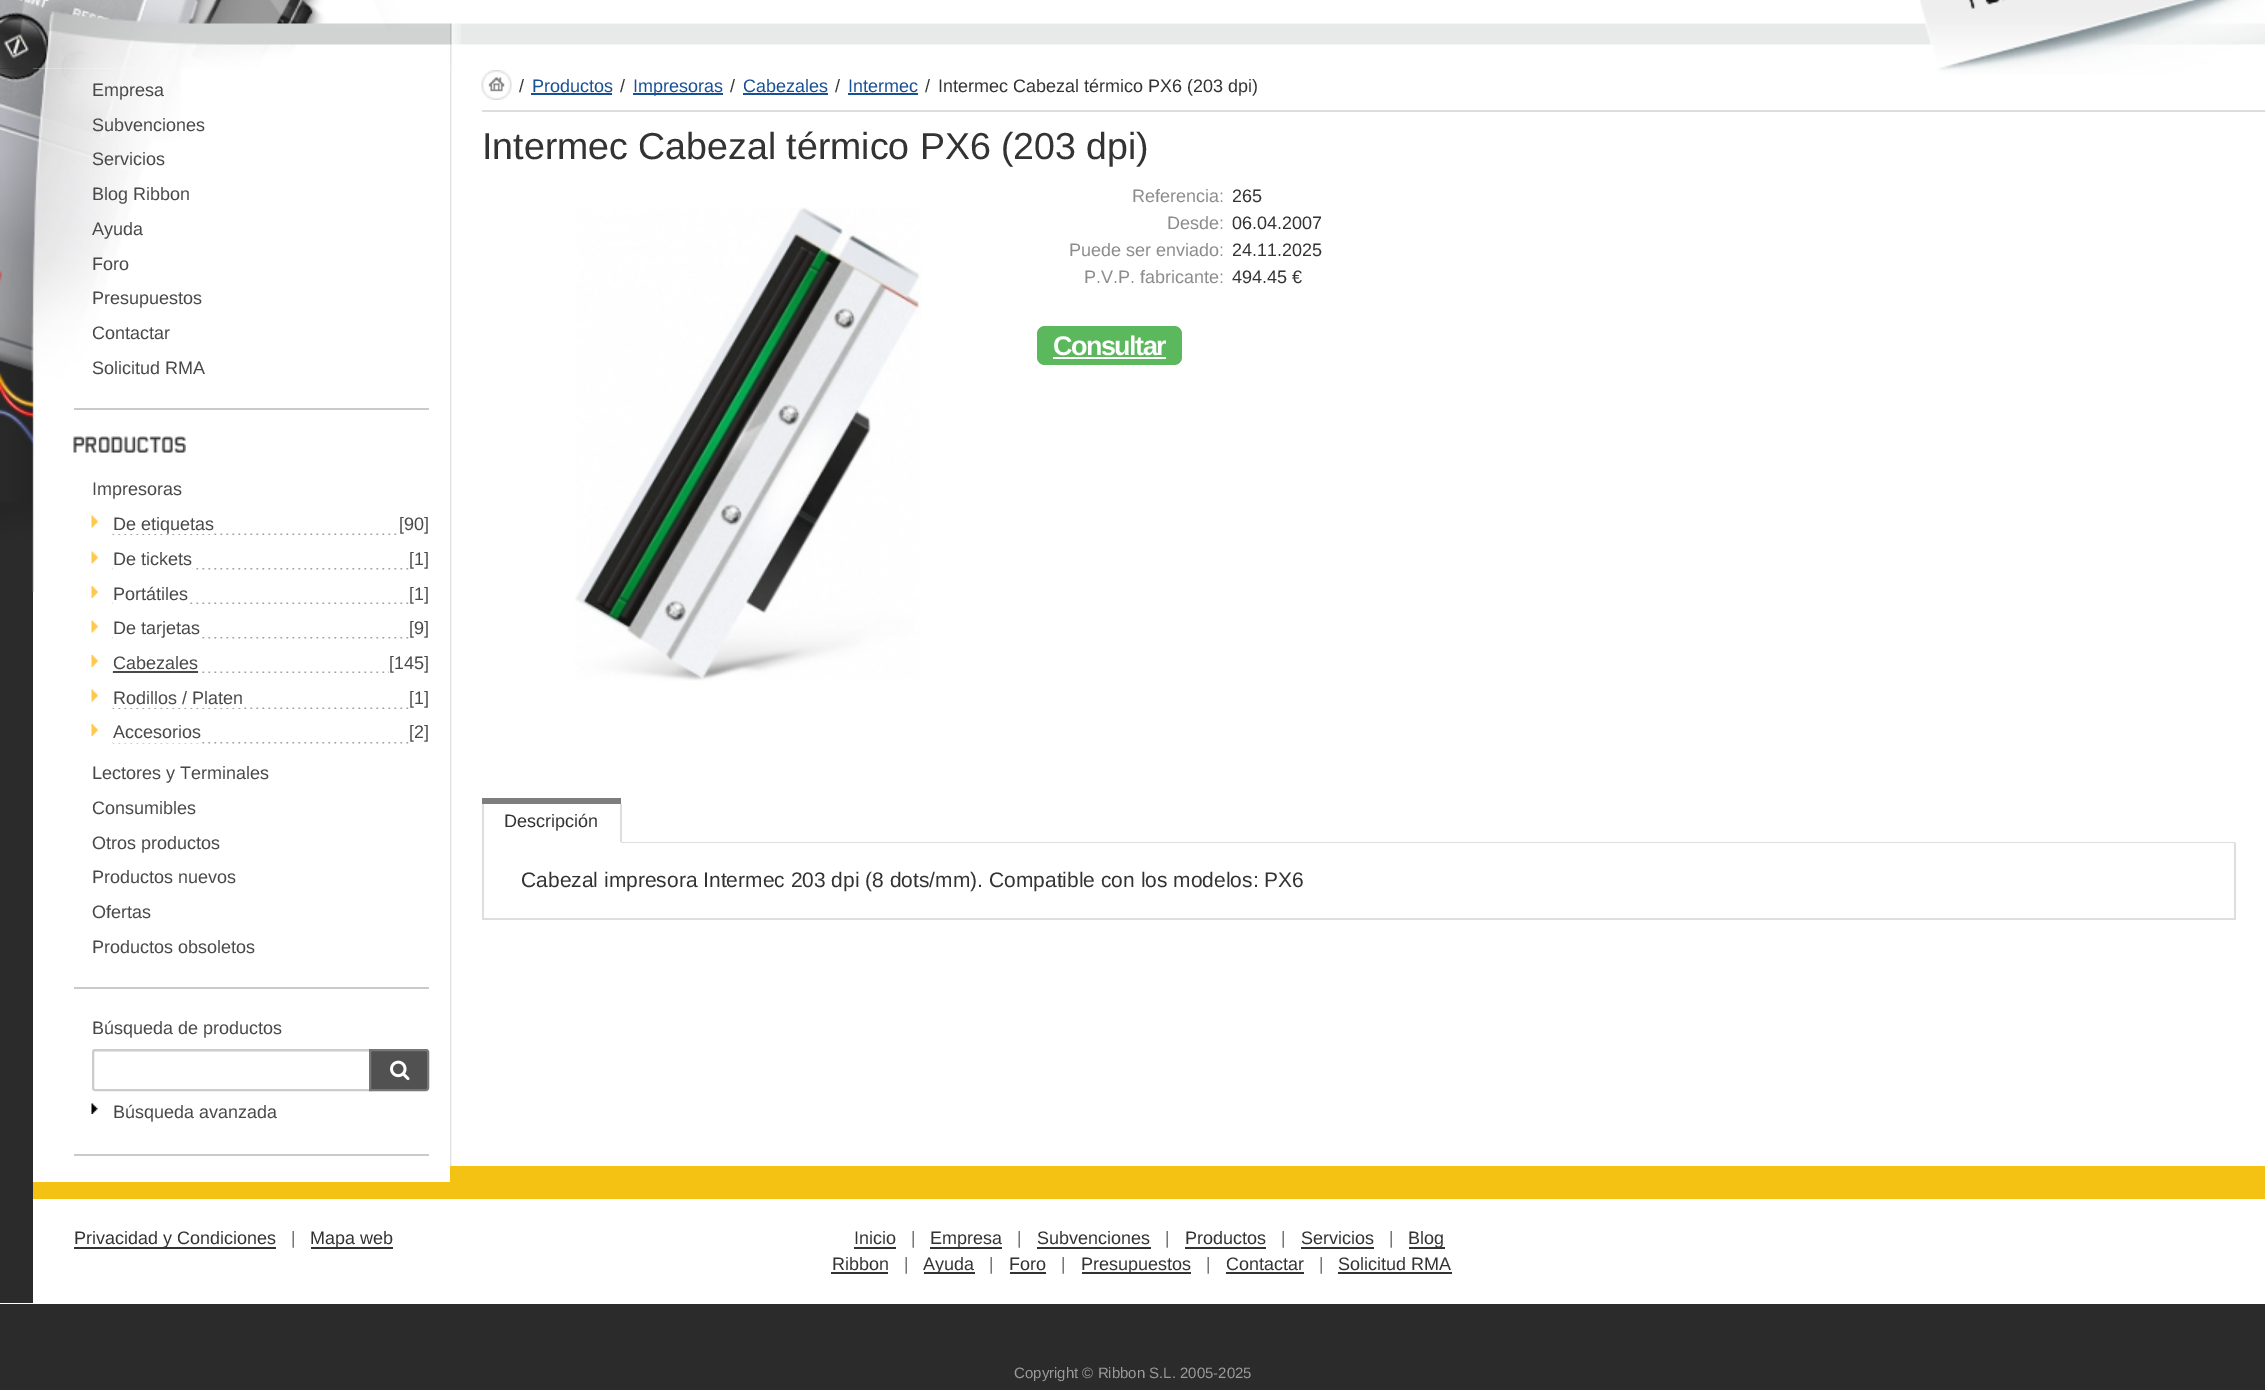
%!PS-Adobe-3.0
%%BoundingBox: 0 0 2265 1390
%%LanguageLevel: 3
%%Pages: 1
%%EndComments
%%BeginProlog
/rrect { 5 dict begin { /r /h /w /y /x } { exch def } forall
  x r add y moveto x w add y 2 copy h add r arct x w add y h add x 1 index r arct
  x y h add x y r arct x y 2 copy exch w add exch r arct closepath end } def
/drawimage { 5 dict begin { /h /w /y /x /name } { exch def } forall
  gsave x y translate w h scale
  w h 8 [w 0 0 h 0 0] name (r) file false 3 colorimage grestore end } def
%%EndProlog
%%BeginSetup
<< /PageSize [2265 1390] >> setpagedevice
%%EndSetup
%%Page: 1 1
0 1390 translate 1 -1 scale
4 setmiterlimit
0.169 setgray
0 0 2265 1390 rectfill
1 setgray
450 0 1815 23 rectfill
(images/1.raw) 33 23 2232 46 drawimage
(images/2.raw) 0 0 450 69 drawimage
(images/3.raw) 450 23 11 46 drawimage
0 69 2265 1235 rectfill
(images/4.raw) 1920 0 345 75 drawimage
0.169 setgray
0 68 33 1235 rectfill
(images/5.raw) 0 68 181 524 drawimage
0.957 0.761 0.075 setrgbcolor
33 1182 417 17 rectfill
0.792 setgray
74 408 355 2 rectfill
74 987 355 2 rectfill
(images/6.raw) 73 436 113 17 drawimage
(images/7.raw) 91 515 7 13 drawimage
(images/8.raw) 112 533 287 2 drawimage
1 setgray
113 533 98 1 rectfill
(images/7.raw) 91 551 7 13 drawimage
(images/9.raw) 112 568 298 2 drawimage
113 568 79 2 rectfill
(images/10.raw) 91 586 7 12 drawimage
(images/11.raw) 112 602 298 2 drawimage
113 602 74 2 rectfill
(images/7.raw) 91 620 7 13 drawimage
(images/12.raw) 112 637 298 2 drawimage
113 637 86 2 rectfill
(images/10.raw) 91 655 7 12 drawimage
(images/13.raw) 112 671 277 2 drawimage
113 671 85 2 rectfill
0.286 setgray
113 671 85 2 rectfill
(images/7.raw) 91 689 7 13 drawimage
(images/14.raw) 112 707 298 2 drawimage
1 setgray
113 707 128 1 rectfill
(images/10.raw) 91 724 7 12 drawimage
(images/9.raw) 112 742 298 2 drawimage
113 742 86 1 rectfill
0.792 setgray
74 1154 355 2 rectfill
0.925 setgray
newpath 94 1052 moveto 369 1052 lineto 369 1050 lineto 94 1050 lineto 93 1050 lineto 93 1053 lineto closepath fill
0.8 setgray
2 setlinewidth
newpath 95 1050 moveto 370 1050 lineto 370 1090 lineto 95 1090 lineto 94 1090 93 1089 93 1088 curveto 93 1052 lineto 93 1051 94 1050 95 1050 curveto closepath stroke
0.318 setgray
newpath 370 1050 moveto 426 1050 lineto 427 1050 428 1051 428 1052 curveto 428 1088 lineto 428 1089 427 1090 426 1090 curveto 370 1090 lineto closepath gsave fill grestore
0.467 setgray
stroke
(images/15.raw) 390 1060 20 21 drawimage
(images/16.raw) 91 1103 7 11 drawimage
(images/17.raw) 450 68 2 1098 drawimage
0.957 0.761 0.075 setrgbcolor
450 1166 1815 33 rectfill
0.878 0.859 0.867 setrgbcolor
482 110 1783 2 rectfill
(images/18.raw) 481 70 31 30 drawimage
0.094 0.314 0.584 setrgbcolor
531 93 81 2 rectfill
633 93 90 2 rectfill
743 93 85 2 rectfill
848 93 70 2 rectfill
(images/19.raw) 575 207 346 474 drawimage
0.361 0.722 0.361 setrgbcolor
1037 326 145 39 8 rrect fill
1 setgray
1053 357 113 2 rectfill
0.871 setgray
622 842 1613 1 rectfill
0.494 setgray
482 798 139 6 rectfill
0.871 setgray
620 804 2 39 rectfill
1 setgray
620 842 1 1 rectfill
0.871 setgray
2234 843 2 77 rectfill
482 918 1753 2 rectfill
482 804 2 116 rectfill
0.2 setgray
74 1247 202 2 rectfill
311 1247 82 2 rectfill
854 1247 42 2 rectfill
930 1247 72 2 rectfill
1037 1247 114 2 rectfill
1185 1247 81 2 rectfill
1301 1247 73 2 rectfill
1409 1247 36 2 rectfill
831 1272 57 2 rectfill
924 1272 51 2 rectfill
1010 1272 36 2 rectfill
1082 1272 109 2 rectfill
1226 1272 78 2 rectfill
1338 1272 114 2 rectfill
/LiberationSans-Regular [18 0 0 -18 0 0] selectfont
0.286 setgray
92 96 moveto (Empresa) show
92 131 moveto (Subvenciones) show
92 165 moveto (Servicios) show
92 200 moveto (Blog Ribbon) show
92 235 moveto (Ayuda) show
92 270 moveto (Foro) show
92 304 moveto (Presupuestos) show
92 339 moveto (Contactar) show
92 374 moveto (Solicitud RMA) show
92 495 moveto (Impresoras) show
113 530 moveto (De etiquetas) show
399 530 moveto ([90]) show
113 565 moveto (De tickets) show
409 565 moveto ([1]) show
113 600 moveto (Portátiles) show
409 600 moveto ([1]) show
113 634 moveto (De tarjetas) show
409 634 moveto ([9]) show
113 669 moveto (Cabezales) show
389 669 moveto ([145]) show
113 704 moveto (Rodillos / Platen) show
409 704 moveto ([1]) show
113 738 moveto (Accesorios) show
409 738 moveto ([2]) show
92 779 moveto (Lectores y Terminales) show
92 814 moveto (Consumibles) show
92 849 moveto (Otros productos) show
92 883 moveto (Productos nuevos) show
92 918 moveto (Ofertas) show
92 953 moveto (Productos obsoletos) show
92 1034 moveto (Búsqueda de productos) show
113 1118 moveto (Búsqueda avanzada) show
0.2 setgray
519 92 moveto (/) show
0.094 0.314 0.584 setrgbcolor
532 92 moveto (Productos) show
0.2 setgray
620 92 moveto (/) show
0.094 0.314 0.584 setrgbcolor
633 92 moveto (Impresoras) show
0.2 setgray
730 92 moveto (/) show
0.094 0.314 0.584 setrgbcolor
743 92 moveto (Cabezales) show
0.2 setgray
835 92 moveto (/) show
0.094 0.314 0.584 setrgbcolor
848 92 moveto (Intermec) show
0.2 setgray
925 92 moveto (/) show
938 92 moveto (Intermec Cabezal térmico PX6 \(203 dpi\)) show
/LiberationSans-Regular [37.5 0 0 -37.5 0 0] selectfont
482 159 moveto (Intermec Cabezal térmico PX6 \(203 dpi\)) show
/LiberationSans-Regular [18 0 0 -18 0 0] selectfont
0.549 setgray
1132 202 moveto (Referencia:) show
0.2 setgray
1232 202 moveto (265) show
0.549 setgray
1167 229 moveto (Desde:) show
0.2 setgray
1232 229 moveto (06.04.2007) show
0.549 setgray
1069 256 moveto (Puede ser enviado:) show
0.2 setgray
1232 256 moveto (24.11.2025) show
0.549 setgray
1084 283 moveto (P.V.P. fabricante:) show
0.2 setgray
1232 283 moveto (494.45 €) show
/LiberationSans-Bold [27 0 0 -27 0 0] selectfont
1 setgray
1053 355 moveto -1.5 0 (Consultar) ashow
/LiberationSans-Regular [18 0 0 -18 0 0] selectfont
0.2 setgray
504 827 moveto (Descripción) show
/LiberationSans-Regular [21 0 0 -21 0 0] selectfont
521 887 moveto (Cabezal impresora Intermec 203 dpi \(8 dots/mm\). Compatible con los modelos: PX6) show
/LiberationSans-Regular [18 0 0 -18 0 0] selectfont
74 1244 moveto (Privacidad y Condiciones) show
0.467 setgray
291 1244 moveto (|) show
0.2 setgray
310 1244 moveto (Mapa web) show
854 1244 moveto (Inicio) show
0.467 setgray
911 1244 moveto (|) show
0.2 setgray
930 1244 moveto (Empresa) show
0.467 setgray
1017 1244 moveto (|) show
0.2 setgray
1037 1244 moveto (Subvenciones) show
0.467 setgray
1165 1244 moveto (|) show
0.2 setgray
1185 1244 moveto (Productos) show
0.467 setgray
1281 1244 moveto (|) show
0.2 setgray
1301 1244 moveto (Servicios) show
0.467 setgray
1389 1244 moveto (|) show
0.2 setgray
1408 1244 moveto (Blog) show
832 1270 moveto (Ribbon) show
0.467 setgray
904 1270 moveto (|) show
0.2 setgray
923 1270 moveto (Ayuda) show
0.467 setgray
989 1270 moveto (|) show
0.2 setgray
1009 1270 moveto (Foro) show
0.467 setgray
1061 1270 moveto (|) show
0.2 setgray
1081 1270 moveto (Presupuestos) show
0.467 setgray
1206 1270 moveto (|) show
0.2 setgray
1226 1270 moveto (Contactar) show
0.467 setgray
1319 1270 moveto (|) show
0.2 setgray
1338 1270 moveto (Solicitud RMA) show
/LiberationSans-Regular [15 0 0 -15 0 0] selectfont
0.604 setgray
1014 1378 moveto (Copyright © Ribbon S.L. 2005-2025) show
showpage
%%EOF
